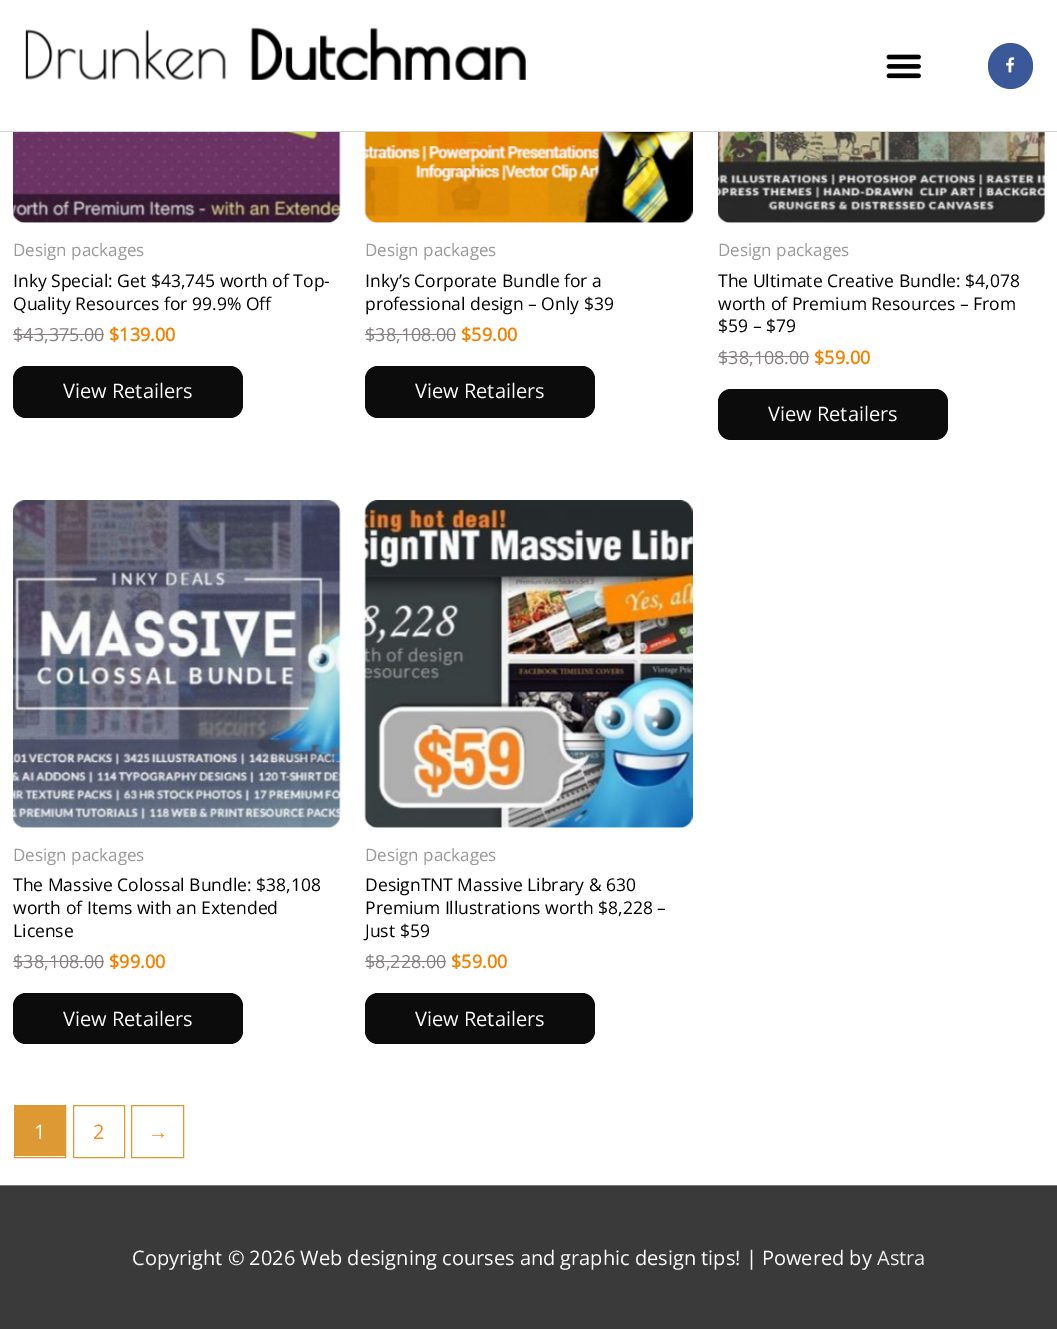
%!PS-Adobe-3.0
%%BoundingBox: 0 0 1057 1329
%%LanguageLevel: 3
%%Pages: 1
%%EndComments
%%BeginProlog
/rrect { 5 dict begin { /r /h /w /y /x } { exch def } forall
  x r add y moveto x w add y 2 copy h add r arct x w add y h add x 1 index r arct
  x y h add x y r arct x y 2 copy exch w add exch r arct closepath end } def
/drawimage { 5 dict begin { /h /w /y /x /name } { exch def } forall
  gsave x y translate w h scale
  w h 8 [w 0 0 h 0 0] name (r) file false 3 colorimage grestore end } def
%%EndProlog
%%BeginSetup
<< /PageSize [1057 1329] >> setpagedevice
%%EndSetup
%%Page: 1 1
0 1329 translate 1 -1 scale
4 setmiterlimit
1 setgray
0 0 1057 1329 rectfill
0.827 setgray
0 131 1057 1 rectfill
(images/1.raw) 25 27 501 53 drawimage
(images/2.raw) 886 54 35 25 drawimage
0.231 0.349 0.596 setrgbcolor
988 43 45 46 22.5 rrect fill
(images/3.raw) 1006 57 9 16 drawimage
(images/4.raw) 13 132 328 91 drawimage
0.525 0.502 0.502 setrgbcolor
13 334 91 1 rectfill
0.047 setgray
13 366 230 52 13 rrect fill
(images/5.raw) 364 132 329 91 drawimage
0.525 0.502 0.502 setrgbcolor
365 334 91 1 rectfill
0.047 setgray
365 366 230 52 13 rrect fill
(images/6.raw) 718 132 327 91 drawimage
0.525 0.502 0.502 setrgbcolor
718 356 91 1 rectfill
0.047 setgray
718 389 230 51 13 rrect fill
(images/7.raw) 13 500 328 328 drawimage
0.525 0.502 0.502 setrgbcolor
13 961 91 1 rectfill
0.047 setgray
13 993 230 51 13 rrect fill
(images/8.raw) 364 500 329 328 drawimage
0.525 0.502 0.502 setrgbcolor
365 961 81 1 rectfill
0.047 setgray
365 993 230 51 13 rrect fill
0.867 0.6 0.2 setrgbcolor
14.5 1105.5 51 52 rectstroke
15 1106 50 50 rectfill
73.5 1105.5 51 52 rectstroke
131.5 1105.5 52 52 rectstroke
0.478 setgray
0 1185 1057 1 rectfill
0.227 setgray
0 1186 1057 143 rectfill
/OpenSans-Regular [17 0 0 -17 0 0] selectfont
0.6 setgray
13 256 moveto (Design packages) show
/OpenSans-Regular [17.5 0 0 -17.5 0 0] selectfont
0 setgray
13 287 moveto (Inky Special: Get $43,745 worth of Top-) show
13 310 moveto (Quality Resources for 99.9% Off) show
/OpenSans-Regular [18 0 0 -18 0 0] selectfont
0.525 0.502 0.502 setrgbcolor
13 341 moveto ($43,375.00) show
/OpenSans-Bold [18 0 0 -18 0 0] selectfont
0.957 0.51 0 setrgbcolor
109 341 moveto ($139.00) show
/OpenSans-Regular [20 0 0 -20 0 0] selectfont
1 setgray
63 398 moveto (View Retailers) show
/OpenSans-Regular [17 0 0 -17 0 0] selectfont
0.6 setgray
365 256 moveto (Design packages) show
/OpenSans-Regular [17.5 0 0 -17.5 0 0] selectfont
0 setgray
365 287 moveto (Inky’s Corporate Bundle for a) show
365 310 moveto (professional design – Only $39) show
/OpenSans-Regular [18 0 0 -18 0 0] selectfont
0.525 0.502 0.502 setrgbcolor
365 341 moveto ($38,108.00) show
/OpenSans-Bold [18 0 0 -18 0 0] selectfont
0.957 0.51 0 setrgbcolor
461 341 moveto ($59.00) show
/OpenSans-Regular [20 0 0 -20 0 0] selectfont
1 setgray
415 398 moveto (View Retailers) show
/OpenSans-Regular [17 0 0 -17 0 0] selectfont
0.6 setgray
718 256 moveto (Design packages) show
/OpenSans-Regular [17.5 0 0 -17.5 0 0] selectfont
0 setgray
718 287 moveto (The Ultimate Creative Bundle: $4,078) show
718 310 moveto (worth of Premium Resources – From) show
718 332 moveto ($59 – $79) show
/OpenSans-Regular [18 0 0 -18 0 0] selectfont
0.525 0.502 0.502 setrgbcolor
718 364 moveto ($38,108.00) show
/OpenSans-Bold [18 0 0 -18 0 0] selectfont
0.957 0.51 0 setrgbcolor
814 364 moveto ($59.00) show
/OpenSans-Regular [20 0 0 -20 0 0] selectfont
1 setgray
768 421 moveto (View Retailers) show
/OpenSans-Regular [17 0 0 -17 0 0] selectfont
0.6 setgray
13 861 moveto (Design packages) show
/OpenSans-Regular [17.5 0 0 -17.5 0 0] selectfont
0 setgray
13 891 moveto (The Massive Colossal Bundle: $38,108) show
13 914 moveto (worth of Items with an Extended) show
13 937 moveto (License) show
/OpenSans-Regular [18 0 0 -18 0 0] selectfont
0.525 0.502 0.502 setrgbcolor
13 968 moveto ($38,108.00) show
/OpenSans-Bold [18 0 0 -18 0 0] selectfont
0.957 0.51 0 setrgbcolor
109 968 moveto ($99.00) show
/OpenSans-Regular [20 0 0 -20 0 0] selectfont
1 setgray
63 1026 moveto (View Retailers) show
/OpenSans-Regular [17 0 0 -17 0 0] selectfont
0.6 setgray
365 861 moveto (Design packages) show
/OpenSans-Regular [17.5 0 0 -17.5 0 0] selectfont
0 setgray
365 891 moveto (DesignTNT Massive Library & 630) show
365 914 moveto (Premium Illustrations worth $8,228 –) show
365 937 moveto (Just $59) show
/OpenSans-Regular [18 0 0 -18 0 0] selectfont
0.525 0.502 0.502 setrgbcolor
365 968 moveto ($8,228.00) show
/OpenSans-Bold [18 0 0 -18 0 0] selectfont
0.957 0.51 0 setrgbcolor
451 968 moveto ($59.00) show
/OpenSans-Regular [20 0 0 -20 0 0] selectfont
1 setgray
415 1026 moveto (View Retailers) show
34 1139 moveto (1) show
0.98 0.545 0.137 setrgbcolor
93 1139 moveto (2) show
/LiberationSans-Regular [20 0 0 -20 0 0] selectfont
148 1139 moveto (→) show
/OpenSans-Regular [20 0 0 -20 0 0] selectfont
1 setgray
132 1265 moveto (Copyright © 2026 Web designing courses and graphic design tips! | Powered by) show
0.918 setgray
877 1265 moveto (Astra) show
showpage
%%EOF
